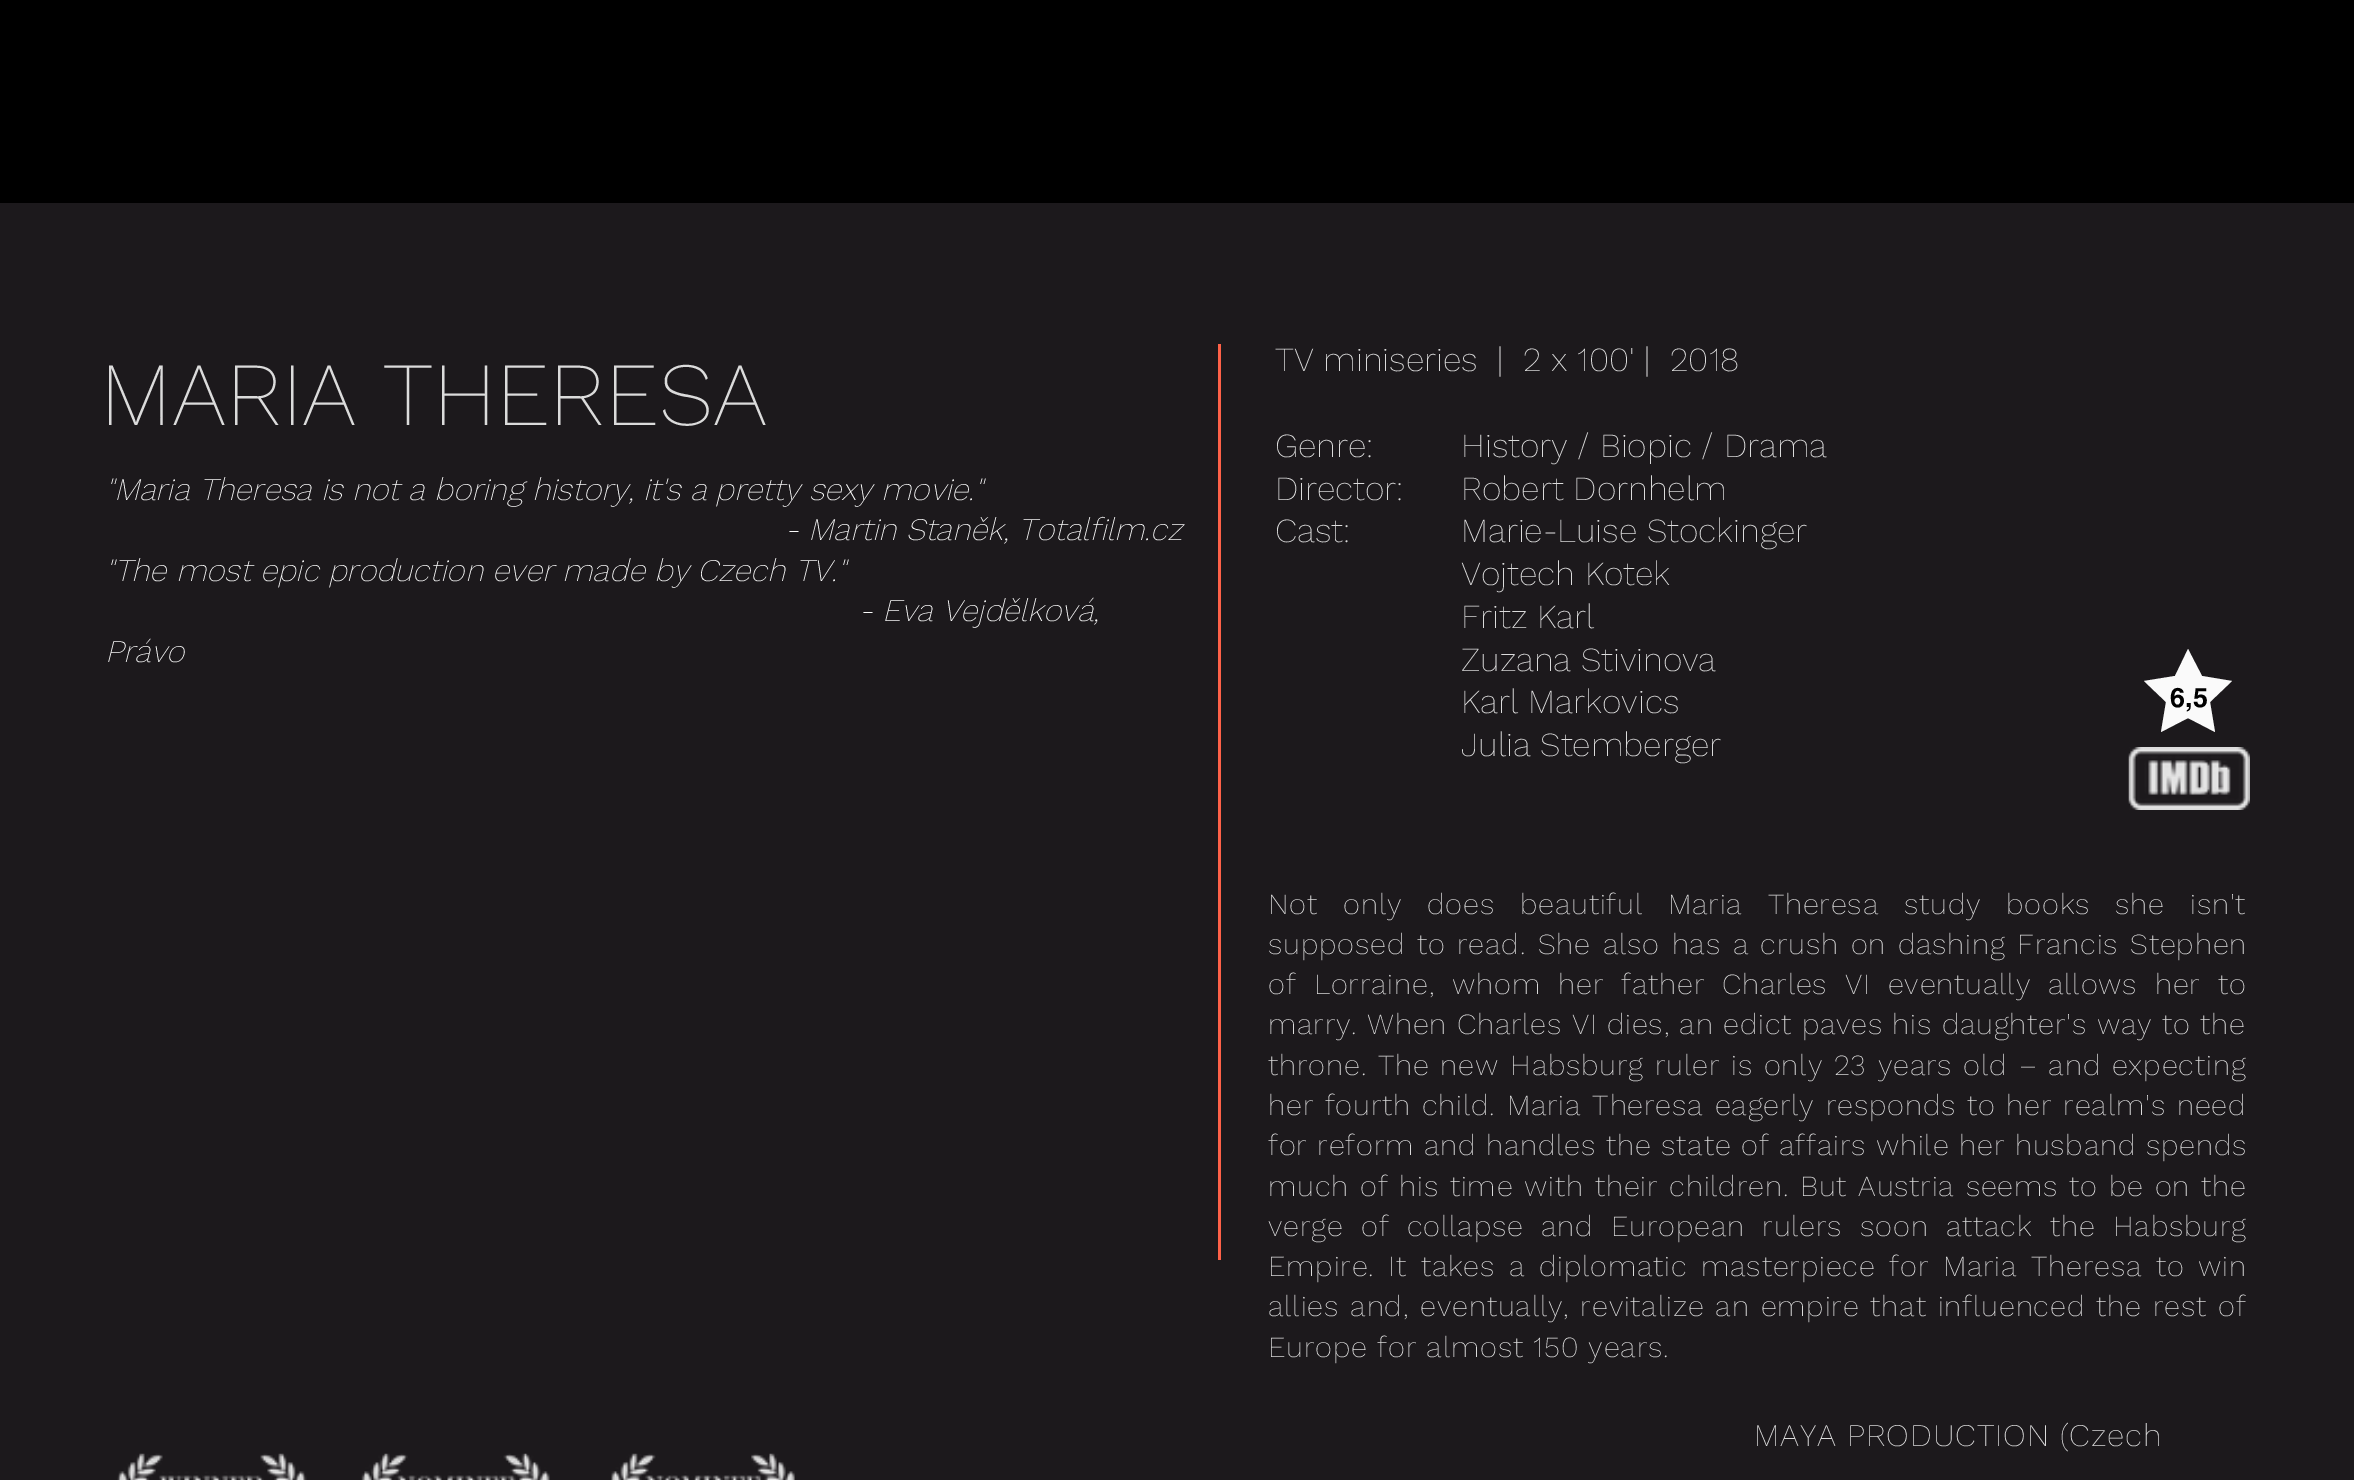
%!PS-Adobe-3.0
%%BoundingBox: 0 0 2354 1480
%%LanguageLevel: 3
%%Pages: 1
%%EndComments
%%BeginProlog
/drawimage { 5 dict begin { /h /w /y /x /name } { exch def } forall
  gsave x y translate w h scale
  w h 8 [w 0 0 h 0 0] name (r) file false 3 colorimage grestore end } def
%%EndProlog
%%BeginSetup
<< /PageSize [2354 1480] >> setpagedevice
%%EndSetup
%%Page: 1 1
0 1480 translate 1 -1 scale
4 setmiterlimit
0 setgray
0 0 2354 1480 rectfill
0.11 0.098 0.11 setrgbcolor
0 203 2354 1277 rectfill
0.996 0.38 0.282 setrgbcolor
1218 344 3 916 rectfill
0.98 setgray
newpath 2188 649 moveto 2202 676 lineto 2232 681 lineto 2210 702 lineto 2215 732 lineto 2188 718 lineto 2161 732 lineto 2166 702 lineto 2144 681 lineto 2175 676 lineto closepath fill
(images/1.raw) 2128 747 122 63 drawimage
(images/2.raw) 117 1453 190 27 drawimage
(images/3.raw) 361 1453 189 27 drawimage
(images/4.raw) 611 1453 184 27 drawimage
/WorkSans-ExtraLight [90 0 0 -90 0 0] selectfont
0.859 setgray
100 425 moveto (MARIA THERESA) show
/WorkSans-ExtraLight [33.75 0 0 -33.75 0 0] selectfont
1275 371 moveto (TV miniseries  |  2 x 100' |  2018) show
1275 457 moveto (Genre:) show
1275 500 moveto (Director:) show
1275 542 moveto (Cast:) show
1461 457 moveto (History / Biopic / Drama) show
1461 500 moveto (Robert Dornhelm) show
1461 542 moveto (Marie-Luise Stockinger) show
1461 585 moveto (Vojtech Kotek) show
1461 628 moveto (Fritz Karl) show
1461 671 moveto (Zuzana Stivinova) show
1461 713 moveto (Karl Markovics) show
1461 756 moveto (Julia Stemberger) show
/WorkSans-ExtraLightItalic [31.5 0 0 -31.5 0 0] selectfont
0.98 setgray
105 500 moveto ("Maria Theresa is not a boring history, it's a pretty sexy movie.") show
785 540 moveto (- Martin Staněk, Totalfilm.cz) show
105 581 moveto ("The most epic production ever made by Czech TV.") show
859 621 moveto (- Eva Vejdělková,) show
105 662 moveto (Právo) show
/helvetica-Bold [27 0 0 -27 0 0] selectfont
0 setgray
2170 707 moveto (6,5) show
/WorkSans-ExtraLight [29.25 0 0 -29.25 0 0] selectfont
0.859 setgray
1268 914 moveto 15.5 0 32 0.88 0 (Not only does beautiful Maria Theresa study books she isn't) awidthshow
1268 954 moveto 2.25 0 32 0.88 0 (supposed to read. She also has a crush on dashing Francis Stephen) awidthshow
1268 994 moveto 7.75 0 32 0.88 0 (of Lorraine, whom her father Charles VI eventually allows her to) awidthshow
1268 1034 moveto 0.88 0 (marry. When Charles VI dies, an edict paves his daughter's way to the) ashow
1268 1075 moveto 1.5 0 32 0.88 0 (throne. The new Habsburg ruler is only 23 years old – and expecting) awidthshow
1268 1115 moveto 1.5 0 32 0.88 0 (her fourth child. Maria Theresa eagerly responds to her realm's need) awidthshow
1268 1155 moveto 0.25 0 32 0.88 0 (for reform and handles the state of affairs while her husband spends) awidthshow
1268 1196 moveto 1.4 0 32 0.88 0 (much of his time with their children. But Austria seems to be on the) awidthshow
1268 1236 moveto 8 0 32 0.88 0 (verge of collapse and European rulers soon attack the Habsburg) awidthshow
1268 1276 moveto 4.25 0 32 0.88 0 (Empire. It takes a diplomatic masterpiece for Maria Theresa to win) awidthshow
1268 1316 moveto 1.6 0 32 0.88 0 (allies and, eventually, revitalize an empire that influenced the rest of) awidthshow
1268 1357 moveto 0.88 0 (Europe for almost 150 years.) ashow
/WorkSans-ExtraLight [31.5 0 0 -31.5 0 0] selectfont
1754 1446 moveto 0.9 0 (MAYA PRODUCTION \(Czech) ashow
showpage
%%EOF
